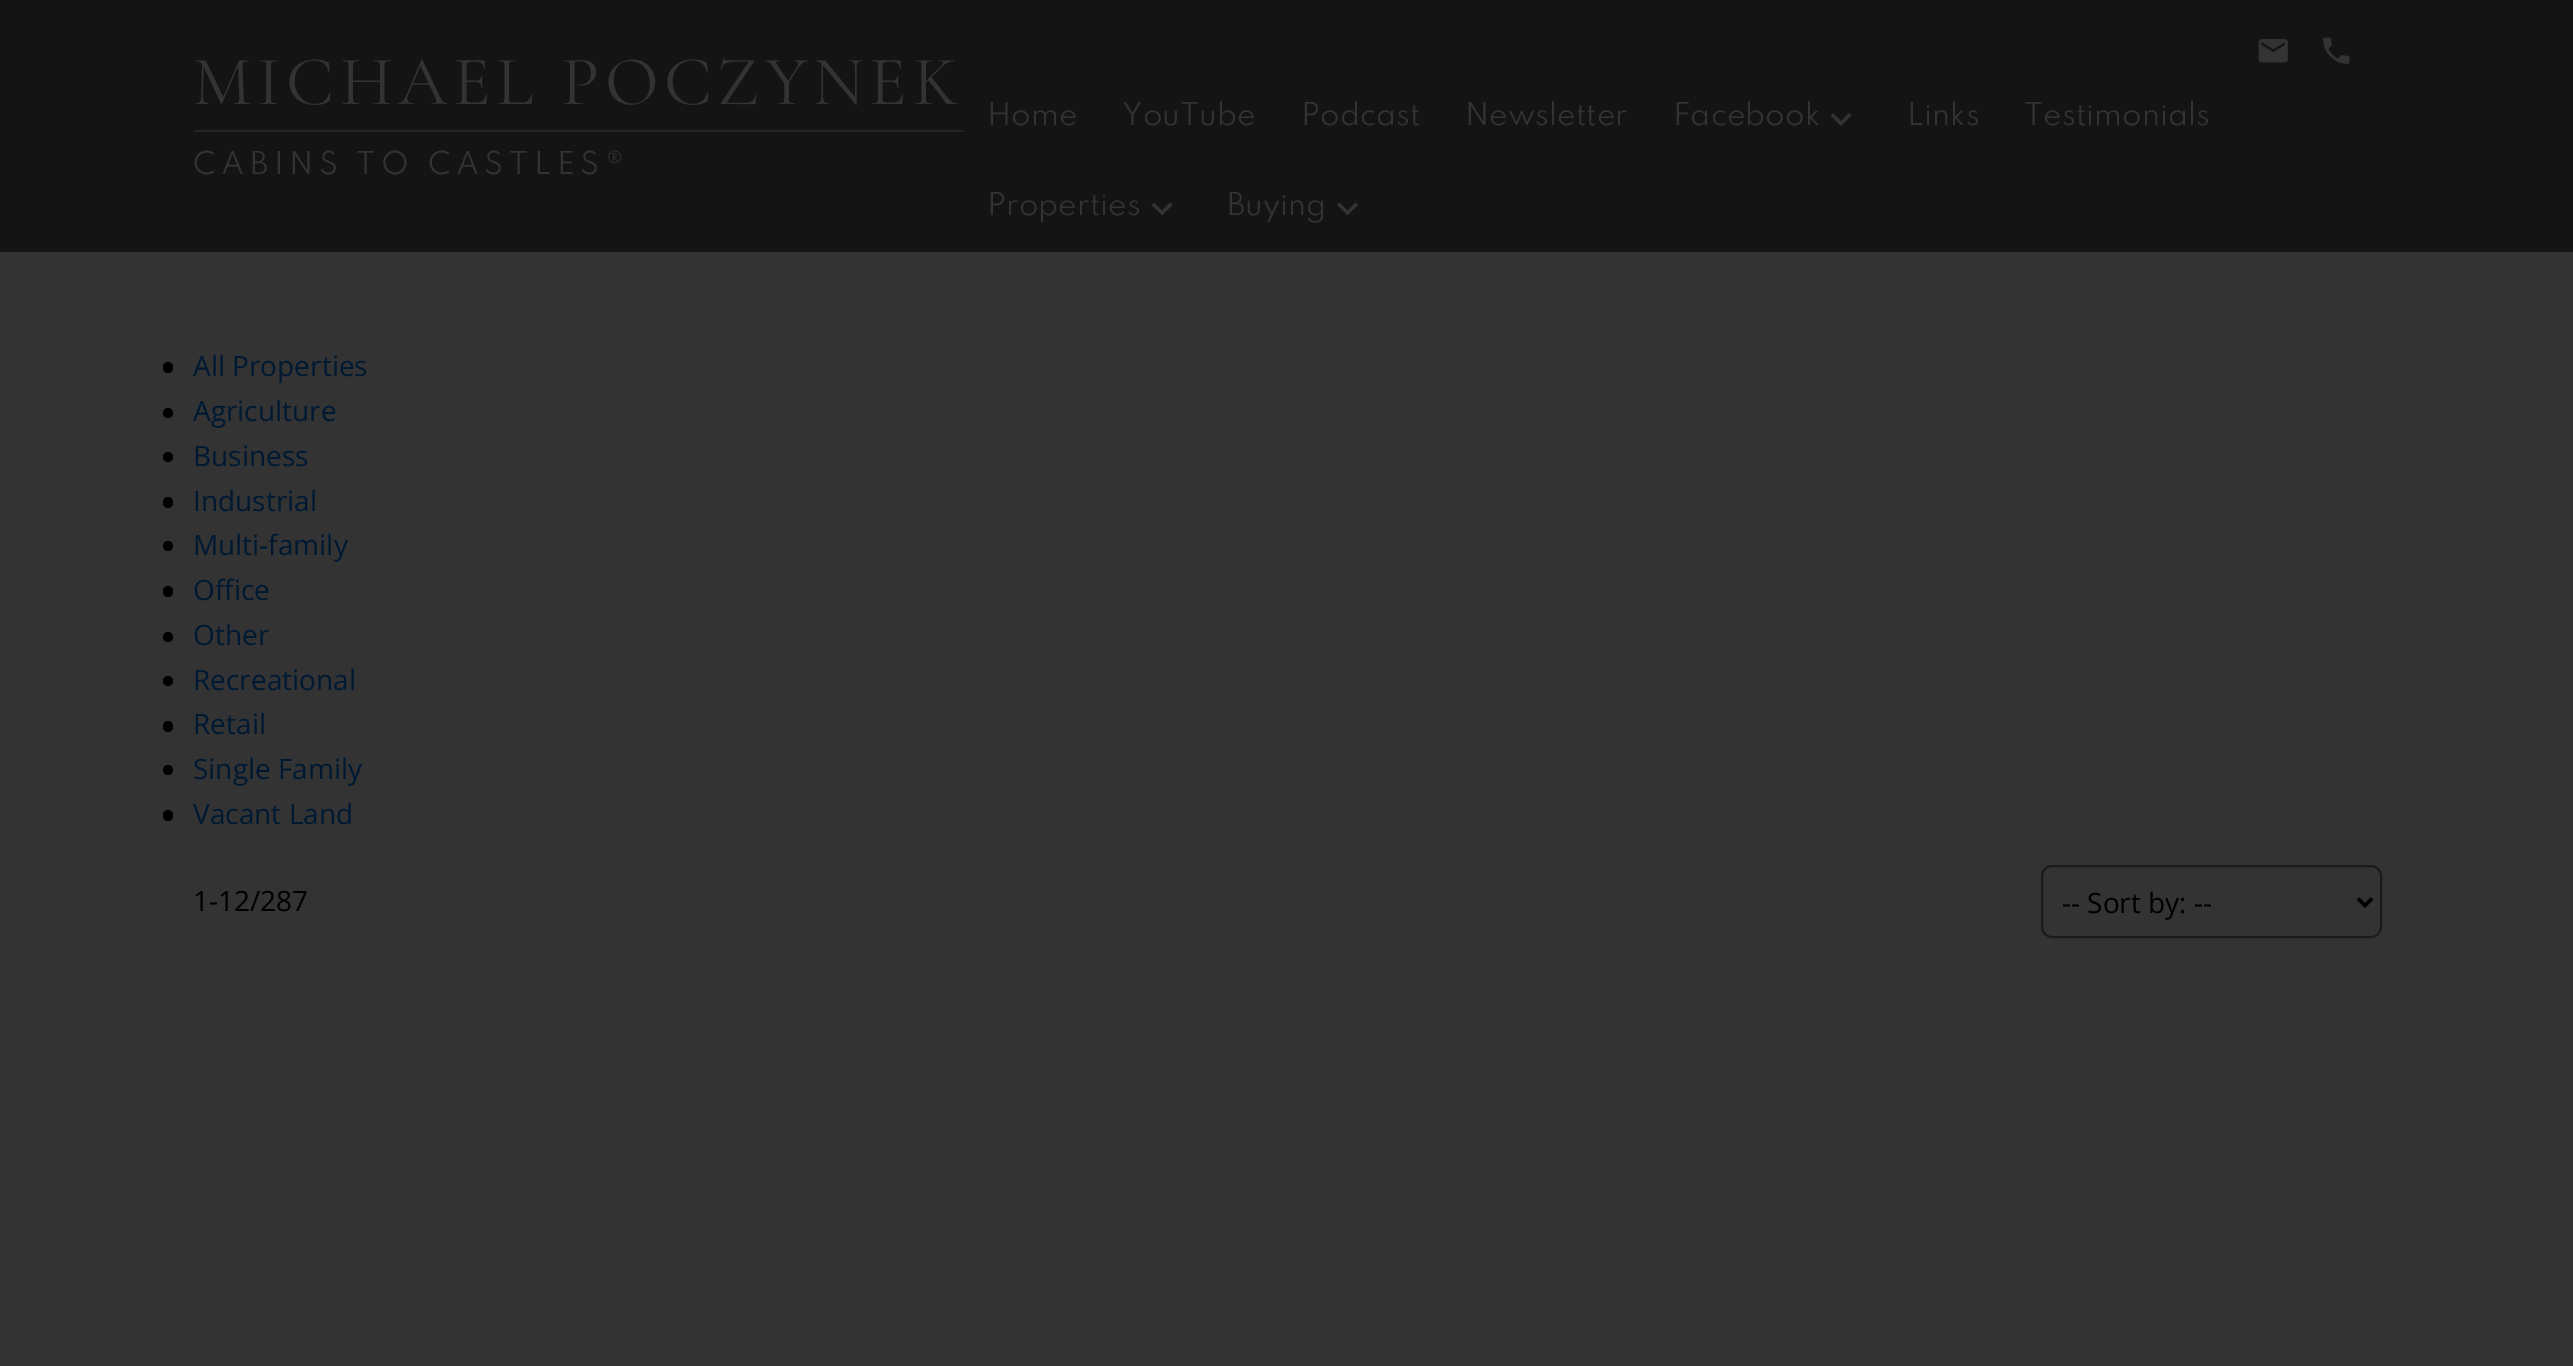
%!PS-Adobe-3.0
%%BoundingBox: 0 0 2573 1366
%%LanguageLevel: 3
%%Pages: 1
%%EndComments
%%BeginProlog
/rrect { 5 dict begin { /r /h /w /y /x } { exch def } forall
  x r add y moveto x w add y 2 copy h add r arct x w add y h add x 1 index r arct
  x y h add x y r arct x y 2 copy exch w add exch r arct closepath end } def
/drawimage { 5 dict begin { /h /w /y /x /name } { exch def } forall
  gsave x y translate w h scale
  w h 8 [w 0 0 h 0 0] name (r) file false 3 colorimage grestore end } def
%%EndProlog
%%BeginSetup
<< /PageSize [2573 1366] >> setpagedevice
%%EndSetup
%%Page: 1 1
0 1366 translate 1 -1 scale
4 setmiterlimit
0.2 setgray
0 0 2573 1366 rectfill
0.078 setgray
0 0 2573 252 rectfill
0.141 setgray
194 130 770 2 rectfill
(images/1.raw) 2258 39 30 24 drawimage
(images/2.raw) 2323 37 27 27 drawimage
0.2 setgray
newpath 1849 113 moveto 1841 121 lineto 1833 113 lineto 1830.5 115.5 lineto 1841 126 lineto 1851.5 115.5 lineto closepath fill
newpath 1170 202.5 moveto 1162 210.5 lineto 1154 202.5 lineto 1151.5 205 lineto 1162 215 lineto 1172.5 205 lineto closepath fill
newpath 1355.5 202.5 moveto 1347.5 210.5 lineto 1339.5 202.5 lineto 1337 205 lineto 1347.5 215 lineto 1358 205 lineto closepath fill
0 setgray
163 362 10 11 5 rrect fill
newpath 168 413 5 0 360 arc closepath fill
newpath 168 457 5 0 360 arc closepath fill
163 497 10 11 5 rrect fill
newpath 168 546 5 0 360 arc closepath fill
163 586 10 11 5 rrect fill
newpath 168 637 5 0 360 arc closepath fill
newpath 168 681 5 0 360 arc closepath fill
163 721 10 11 5 rrect fill
newpath 168 770 5 0 360 arc closepath fill
163 810 10 11 5 rrect fill
0.106 setgray
2 setlinewidth
2042 866 339 71 10 rrect stroke
0 setgray
3.5 setlinewidth
newpath 2358 898.5 moveto 2365 905.5 lineto 2372 898.5 lineto stroke
/CormorantGaramond-Light [70 0 0 -70 0 0] selectfont
0.2 setgray
193 104 moveto 5.6 0 (MICHAEL POCZYNEK) ashow
/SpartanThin-Regular [28 0 0 -28 0 0] selectfont
193 174 moveto 5.6 0 (CABINS TO CASTLES®) ashow
987 125 moveto (Home) show
1122 125 moveto (YouTube) show
1301 125 moveto (Podcast) show
1465 125 moveto (Newsletter) show
1673 125 moveto (Facebook) show
1907 125 moveto (Links) show
2024 125 moveto (Testimonials) show
987 215 moveto (Properties) show
1227 215 moveto (Buying) show
/OpenSans-Regular [28 0 0 -28 0 0] selectfont
0 0.098 0.2 setrgbcolor
193 376 moveto (All Properties) show
193 421 moveto (Agriculture) show
193 466 moveto (Business) show
193 511 moveto (Industrial) show
193 555 moveto (Multi-family) show
193 600 moveto (Office) show
193 645 moveto (Other) show
193 690 moveto (Recreational) show
193 734 moveto (Retail) show
193 779 moveto (Single Family) show
193 824 moveto (Vacant Land) show
0 setgray
193 911 moveto (1-12/287) show
2062 913 moveto (-- Sort by: --) show
showpage
%%EOF
